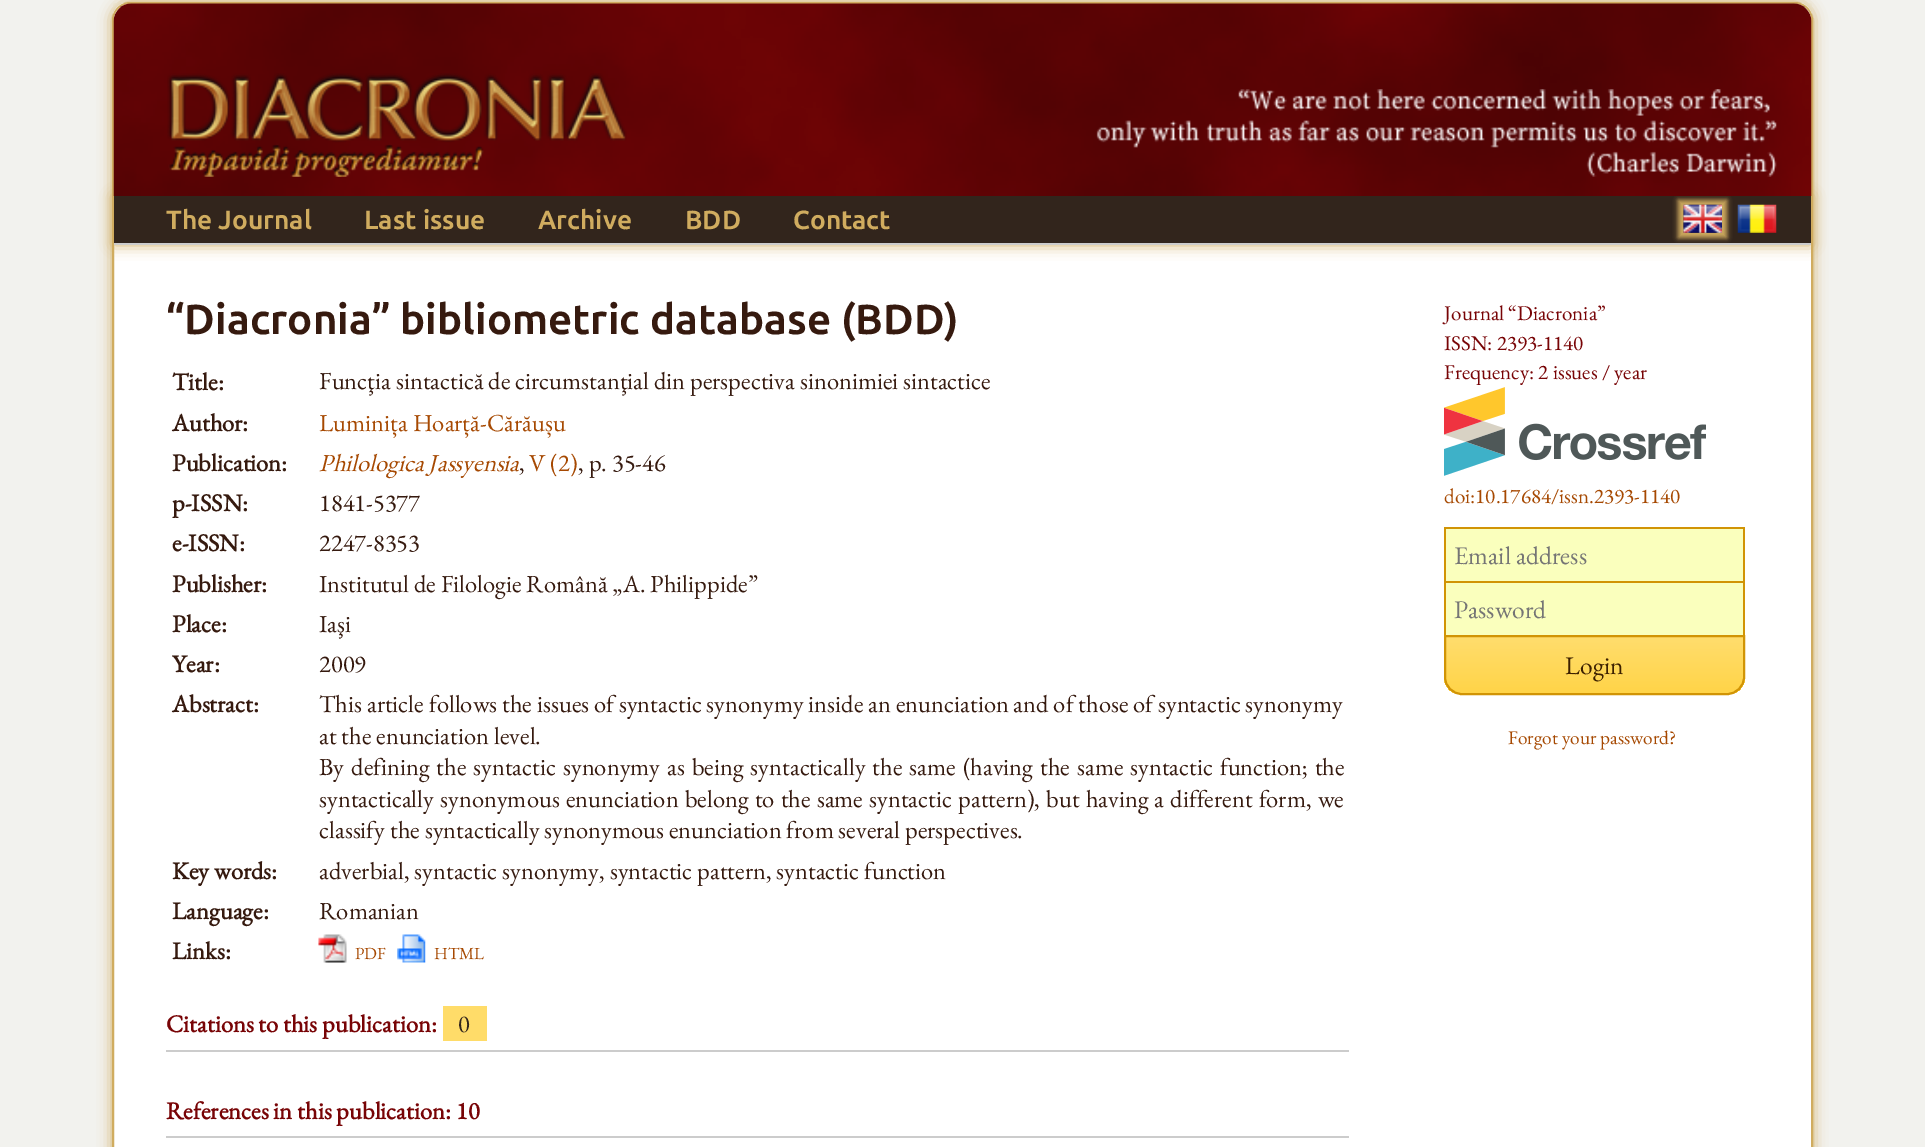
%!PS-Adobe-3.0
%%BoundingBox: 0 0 1925 1147
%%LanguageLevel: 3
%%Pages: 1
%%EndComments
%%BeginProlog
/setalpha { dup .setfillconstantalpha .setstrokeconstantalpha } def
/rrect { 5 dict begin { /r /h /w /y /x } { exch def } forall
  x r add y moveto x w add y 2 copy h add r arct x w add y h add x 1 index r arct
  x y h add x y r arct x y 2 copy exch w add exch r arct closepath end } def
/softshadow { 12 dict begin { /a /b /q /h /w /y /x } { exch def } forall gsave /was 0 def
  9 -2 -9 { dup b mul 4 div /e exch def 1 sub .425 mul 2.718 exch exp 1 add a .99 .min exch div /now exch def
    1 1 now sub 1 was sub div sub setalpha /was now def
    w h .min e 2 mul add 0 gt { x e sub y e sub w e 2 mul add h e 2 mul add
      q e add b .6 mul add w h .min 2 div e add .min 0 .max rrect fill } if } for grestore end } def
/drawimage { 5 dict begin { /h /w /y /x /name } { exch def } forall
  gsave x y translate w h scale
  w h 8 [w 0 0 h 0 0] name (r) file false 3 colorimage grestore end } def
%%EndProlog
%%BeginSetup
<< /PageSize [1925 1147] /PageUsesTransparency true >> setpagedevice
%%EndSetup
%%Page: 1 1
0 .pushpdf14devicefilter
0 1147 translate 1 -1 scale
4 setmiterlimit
0.949 0.949 0.933 setrgbcolor
0 0 1925 1147 rectfill
0.816 0.675 0.373 setrgbcolor
112 2 1701 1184 18 7 1 softshadow
1 setgray
newpath 130 3 moveto 1795 3 lineto 1804.5 3 1812 10.5 1812 20 curveto 1812 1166 lineto 113 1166 lineto 113 20 lineto 113 10.5 120.5 3 130 3 curveto closepath gsave fill grestore
0.816 0.675 0.373 setrgbcolor
2 setlinewidth
stroke
114 196 1697 49 0 7 1 softshadow
0.196 0.145 0.11 setrgbcolor
114 196 1697 47 rectfill
0.8 setgray
114 243 1697 2 rectfill
0.816 0.675 0.373 setrgbcolor
1678 200 49 38 0 2.5 1 softshadow
(images/1.raw) 113 3 1699 193 drawimage
(images/2.raw) 167 73 460 104 drawimage
(images/3.raw) 1096 89 681 88 drawimage
(images/4.raw) 1683 204 39 29 drawimage
(images/5.raw) 1737 204 40 29 drawimage
(images/6.raw) 318 934 29 29 drawimage
(images/7.raw) 397 934 29 29 drawimage
1 0.863 0.412 setrgbcolor
443 1006 44 35 rectfill
0.8 setgray
166 1050 1183 2 rectfill
166 1136 1183 2 rectfill
(images/8.raw) 1444 387 262 89 drawimage
0.98 1 0.741 setrgbcolor
1446 529 297 52 rectfill
0.82 0.58 0.02 setrgbcolor
1444 527 301 2 rectfill
1743 527 2 54 rectfill
1444 527 2 54 rectfill
0.98 1 0.741 setrgbcolor
1446 583 297 52 rectfill
0.82 0.58 0.02 setrgbcolor
1444 581 301 2 rectfill
1743 581 2 54 rectfill
1444 581 2 54 rectfill
gsave
newpath 1444 635 moveto 1745 635 lineto 1745 677 lineto 1745 687 1737 695 1727 695 curveto 1462 695 lineto 1452 695 1444 687 1444 677 curveto closepath clip newpath
gsave newpath 1444 637 moveto 1745 637 lineto 1745 693 lineto 1444 693 lineto closepath clip newpath
<< /ShadingType 2 /ColorSpace /DeviceRGB /Coords [1594 637 1594 693] /Extend [true true] /Function << /FunctionType 2 /Domain [0 1] /C0 [1 0.867 0.427] /C1 [1 0.831 0.282] /N 1 >> >> shfill grestore
grestore
newpath 1445 636 moveto 1744 636 lineto 1744 677 lineto 1744 686.5 1736.5 694 1727 694 curveto 1462 694 lineto 1452.5 694 1445 686.5 1445 677 curveto closepath stroke
/Ubuntu-Bold [26.25 0 0 -26.25 0 0] selectfont
0.816 0.675 0.373 setrgbcolor
166 229 moveto (The Journal) show
364 229 moveto (Last issue) show
538 229 moveto (Archive) show
685 229 moveto (BDD) show
793 229 moveto (Contact) show
/Ubuntu-Bold [42 0 0 -42 0 0] selectfont
0.212 0.102 0.059 setrgbcolor
166 334 moveto (“Diacronia” bibliometric database \(BDD\)) show
/EBGaramond-Bold [24.5 0 0 -24.5 0 0] selectfont
172 390 moveto (Title:) show
/EBGaramond-Regular [24.5 0 0 -24.5 0 0] selectfont
319 389 moveto (Funcţia sintactică de circumstanţial din perspectiva sinonimiei sintactice) show
/EBGaramond-Bold [24.5 0 0 -24.5 0 0] selectfont
172 431 moveto (Author:) show
/EBGaramond-Regular [24.5 0 0 -24.5 0 0] selectfont
0.651 0.286 0.008 setrgbcolor
319 431 moveto (Luminița Hoarță-Cărăușu) show
/EBGaramond-Bold [24.5 0 0 -24.5 0 0] selectfont
0.212 0.102 0.059 setrgbcolor
172 471 moveto (Publication:) show
/EBGaramond-Italic [24.5 0 0 -24.5 0 0] selectfont
0.651 0.286 0.008 setrgbcolor
319 471 moveto (Philologica Jassyensia) show
/EBGaramond-Regular [24.5 0 0 -24.5 0 0] selectfont
0.212 0.102 0.059 setrgbcolor
519 471 moveto (,) show
0.651 0.286 0.008 setrgbcolor
529 471 moveto (V \(2\)) show
0.212 0.102 0.059 setrgbcolor
578 471 moveto (, p. 35-46) show
/EBGaramond-Bold [24.5 0 0 -24.5 0 0] selectfont
172 511 moveto (p-ISSN:) show
/EBGaramond-Regular [24.5 0 0 -24.5 0 0] selectfont
319 511 moveto (1841-5377) show
/EBGaramond-Bold [24.5 0 0 -24.5 0 0] selectfont
172 551 moveto (e-ISSN:) show
/EBGaramond-Regular [24.5 0 0 -24.5 0 0] selectfont
319 551 moveto (2247-8353) show
/EBGaramond-Bold [24.5 0 0 -24.5 0 0] selectfont
172 592 moveto (Publisher:) show
/EBGaramond-Regular [24.5 0 0 -24.5 0 0] selectfont
319 592 moveto (Institutul de Filologie Română „A. Philippide”) show
/EBGaramond-Bold [24.5 0 0 -24.5 0 0] selectfont
172 632 moveto (Place:) show
/EBGaramond-Regular [24.5 0 0 -24.5 0 0] selectfont
319 632 moveto (Iaşi) show
/EBGaramond-Bold [24.5 0 0 -24.5 0 0] selectfont
172 672 moveto (Year:) show
/EBGaramond-Regular [24.5 0 0 -24.5 0 0] selectfont
319 672 moveto (2009) show
/EBGaramond-Bold [24.5 0 0 -24.5 0 0] selectfont
172 712 moveto (Abstract:) show
/EBGaramond-Regular [24.5 0 0 -24.5 0 0] selectfont
319 712 moveto (This article follows the issues of syntactic synonymy inside an enunciation and of those of syntactic synonymy) show
319 744 moveto (at the enunciation level.) show
319 775 moveto 2.1 0 32 (By defining the syntactic synonymy as being syntactically the same \(having the same syntactic function; the) widthshow
319 807 moveto 1.3 0 32 (syntactically synonymous enunciation belong to the same syntactic pattern\), but having a different form, we) widthshow
319 838 moveto (classify the syntactically synonymous enunciation from several perspectives.) show
/EBGaramond-Bold [24.5 0 0 -24.5 0 0] selectfont
172 879 moveto (Key words:) show
/EBGaramond-Regular [24.5 0 0 -24.5 0 0] selectfont
319 879 moveto (adverbial, syntactic synonymy, syntactic pattern, syntactic function) show
/EBGaramond-Bold [24.5 0 0 -24.5 0 0] selectfont
172 919 moveto (Language:) show
/EBGaramond-Regular [24.5 0 0 -24.5 0 0] selectfont
319 919 moveto (Romanian) show
/EBGaramond-Bold [24.5 0 0 -24.5 0 0] selectfont
172 959 moveto (Links:) show
/EBGaramond-Regular [17 0 0 -17 0 0] selectfont
0.651 0.286 0.008 setrgbcolor
355 959 moveto (PDF) show
434 959 moveto (HTML) show
/EBGaramond-Bold [24.5 0 0 -24.5 0 0] selectfont
0.471 0.016 0.024 setrgbcolor
166 1032 moveto (Citations to this publication:) show
/EBGaramond-Regular [24.5 0 0 -24.5 0 0] selectfont
0.196 0.145 0.11 setrgbcolor
458 1032 moveto (0) show
/EBGaramond-Bold [24.5 0 0 -24.5 0 0] selectfont
0.471 0.016 0.024 setrgbcolor
166 1119 moveto (References in this publication: 10) show
/EBGaramond-Regular [21 0 0 -21 0 0] selectfont
1444 320 moveto (Journal “Diacronia”) show
1444 350 moveto (ISSN: 2393-1140) show
1444 379 moveto (Frequency: 2 issues / year) show
0.651 0.286 0.008 setrgbcolor
1444 503 moveto (doi:10.17684/issn.2393-1140) show
/EBGaramond-Regular [25.5 0 0 -25.5 0 0] selectfont
0.459 setgray
1454 564 moveto (Email address) show
1454 618 moveto (Password) show
0.235 0.125 0 setrgbcolor
1565 674 moveto (Login) show
/EBGaramond-Regular [19.25 0 0 -19.25 0 0] selectfont
0.651 0.286 0.008 setrgbcolor
1508 744 moveto (Forgot your password?) show
.poppdf14devicefilter showpage
%%EOF
